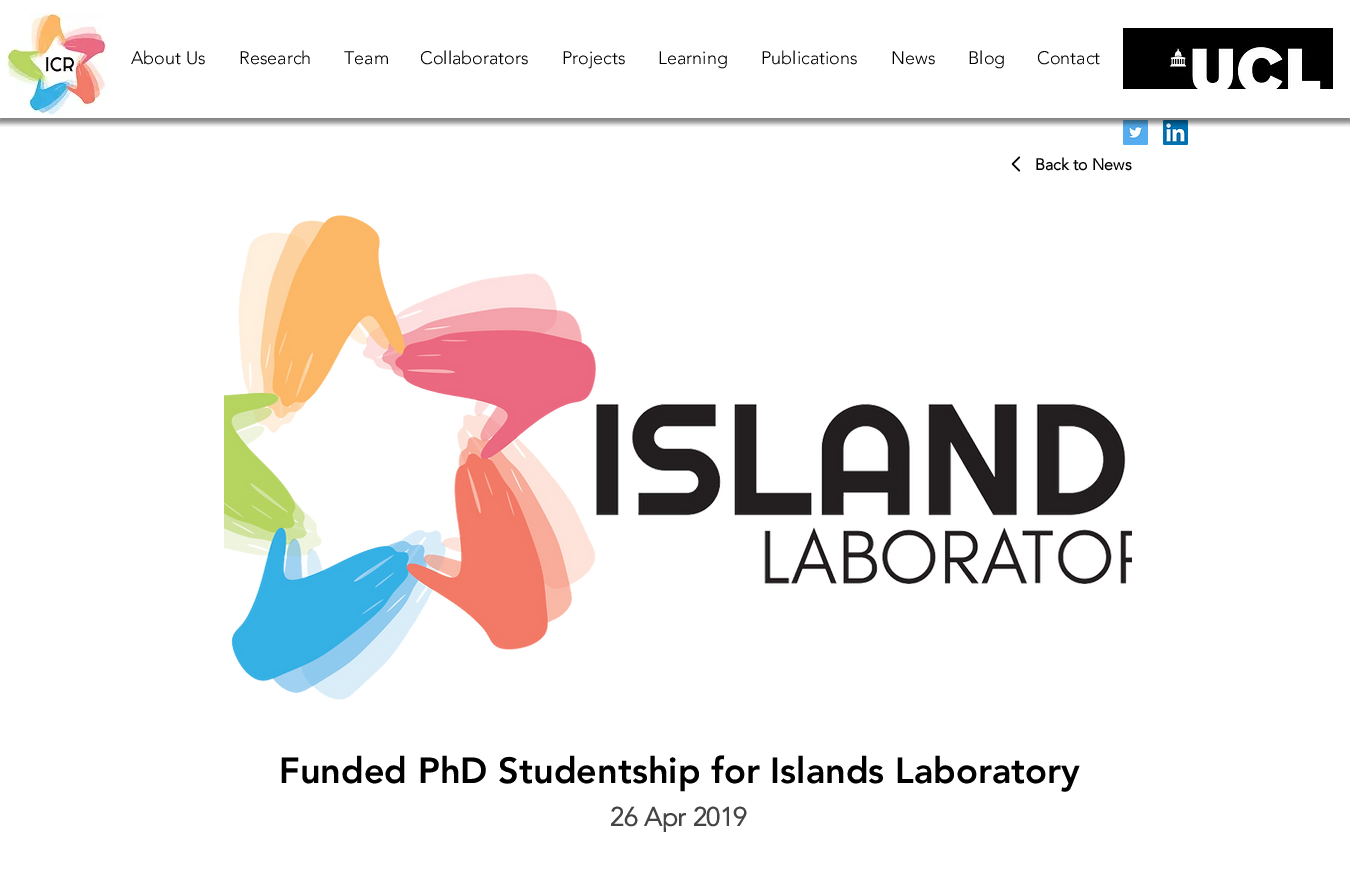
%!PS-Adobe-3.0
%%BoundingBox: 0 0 1350 888
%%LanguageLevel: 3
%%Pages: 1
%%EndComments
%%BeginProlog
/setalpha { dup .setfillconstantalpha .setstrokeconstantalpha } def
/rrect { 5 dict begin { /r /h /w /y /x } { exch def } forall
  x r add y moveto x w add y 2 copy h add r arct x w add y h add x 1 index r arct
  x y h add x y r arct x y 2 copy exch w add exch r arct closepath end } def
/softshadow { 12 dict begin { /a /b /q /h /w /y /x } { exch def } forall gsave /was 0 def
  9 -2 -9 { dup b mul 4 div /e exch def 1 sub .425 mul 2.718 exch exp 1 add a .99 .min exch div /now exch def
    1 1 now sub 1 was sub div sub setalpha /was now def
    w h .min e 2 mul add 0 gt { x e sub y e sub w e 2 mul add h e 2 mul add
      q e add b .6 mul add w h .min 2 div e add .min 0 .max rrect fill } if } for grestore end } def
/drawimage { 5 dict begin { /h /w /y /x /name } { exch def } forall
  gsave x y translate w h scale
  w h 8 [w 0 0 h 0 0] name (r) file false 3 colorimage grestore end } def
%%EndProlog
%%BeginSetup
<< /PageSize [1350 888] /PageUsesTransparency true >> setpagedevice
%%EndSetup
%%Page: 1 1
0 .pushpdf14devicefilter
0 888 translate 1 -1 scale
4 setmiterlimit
1 setgray
0 0 1350 888 rectfill
(images/3.raw) 1123 120 25 25 drawimage
(images/4.raw) 1163 120 25 25 drawimage
gsave
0 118 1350 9 rectclip
0 setgray
-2 1 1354 122 0 2.5 0.5 softshadow
grestore
(images/1.raw) 6 13 103 104 drawimage
(images/2.raw) 1123 28 210 61 drawimage
(images/5.raw) 1011 156 10 16 drawimage
(images/6.raw) 224 215 908 485 drawimage
/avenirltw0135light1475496-Light [18 0 0 -18 0 0] selectfont
0 setgray
131 64 moveto (About Us) show
239 64 moveto (Research) show
344 64 moveto (Team) show
420 64 moveto (Collaborators) show
562 64 moveto (Projects) show
658 64 moveto (Learning) show
761 64 moveto (Publications) show
891 64 moveto (News) show
968 64 moveto (Blog) show
1037 64 moveto (Contact) show
/avenirltw0135light1475496-Bold [16 0 0 -16 0 0] selectfont
1035 170 moveto (Back to News) show
/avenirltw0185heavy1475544-Black [36 0 0 -36 0 0] selectfont
279 783 moveto (Funded PhD Studentship for Islands Laboratory) show
/avenirltw0135light1475496-Bold [26 0 0 -26 0 0] selectfont
0.267 setgray
610 826 moveto (26 Apr 2019) show
.poppdf14devicefilter showpage
%%EOF
